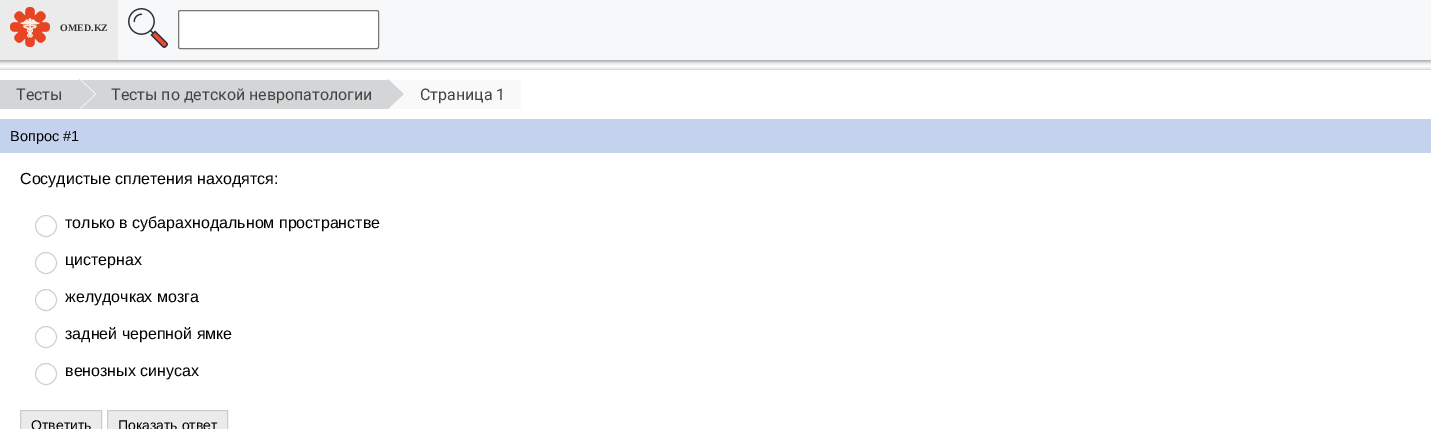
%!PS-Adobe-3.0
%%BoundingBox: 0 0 1431 429
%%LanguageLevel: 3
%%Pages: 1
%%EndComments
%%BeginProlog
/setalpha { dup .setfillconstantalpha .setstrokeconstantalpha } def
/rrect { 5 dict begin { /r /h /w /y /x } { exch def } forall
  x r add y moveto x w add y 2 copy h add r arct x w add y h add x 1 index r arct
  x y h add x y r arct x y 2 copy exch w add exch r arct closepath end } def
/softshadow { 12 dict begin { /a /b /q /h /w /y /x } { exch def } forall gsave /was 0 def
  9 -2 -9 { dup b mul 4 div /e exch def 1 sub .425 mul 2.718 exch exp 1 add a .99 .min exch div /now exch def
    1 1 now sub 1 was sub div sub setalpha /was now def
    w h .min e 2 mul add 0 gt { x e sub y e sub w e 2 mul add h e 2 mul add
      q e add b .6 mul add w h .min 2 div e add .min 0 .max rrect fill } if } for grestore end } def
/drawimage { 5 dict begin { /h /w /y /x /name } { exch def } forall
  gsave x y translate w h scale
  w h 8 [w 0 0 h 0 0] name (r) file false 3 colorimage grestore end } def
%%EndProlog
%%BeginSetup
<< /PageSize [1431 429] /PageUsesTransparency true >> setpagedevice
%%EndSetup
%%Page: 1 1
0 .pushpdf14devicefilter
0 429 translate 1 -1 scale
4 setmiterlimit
1 setgray
0 0 1431 429 rectfill
0 setgray
0 1 1431 60 0 2.5 0.5 softshadow
0.969 0.973 0.98 setrgbcolor
118 0 1313 60 rectfill
0.922 setgray
0 0 118 60 rectfill
(images/1.raw) 10 7 40 40 drawimage
(images/2.raw) 128 8 40 40 drawimage
1 setgray
178.5 10.5 200 38 1.5 rrect gsave fill grestore
0.463 setgray
stroke
gsave
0 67 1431 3 rectclip
0 setgray
0 71 1431 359 0 2.5 0.5 softshadow
grestore
0.827 0.835 0.839 setrgbcolor
0 80 388 29 rectfill
1 setgray
newpath 80 109 moveto 80 79 lineto 96 94 lineto closepath fill
0.827 0.835 0.839 setrgbcolor
newpath 79 109 moveto 79 79 lineto 95 94 lineto closepath fill
0.976 setgray
388 80 133 29 rectfill
1 setgray
newpath 389 109 moveto 389 79 lineto 405 94 lineto closepath fill
0.827 0.835 0.839 setrgbcolor
newpath 388 109 moveto 388 79 lineto 404 94 lineto closepath fill
0.773 0.824 0.929 setrgbcolor
0 119 1431 34 rectfill
0.804 0.82 0.855 setrgbcolor
newpath 46 226 10.5 0 360 arc closepath stroke
newpath 46 263 10.5 0 360 arc closepath stroke
newpath 46 300 10.5 0 360 arc closepath stroke
newpath 46 337 10.5 0 360 arc closepath stroke
newpath 46 374 10.5 0 360 arc closepath stroke
0.922 setgray
newpath 20.5 410.5 moveto 101.5 410.5 lineto 101.5 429.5 lineto 20.5 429.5 lineto closepath gsave fill grestore
0.8 setgray
stroke
0.922 setgray
newpath 107.5 410.5 moveto 227.5 410.5 lineto 227.5 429.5 lineto 107.5 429.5 lineto closepath gsave fill grestore
0.8 setgray
stroke
/LiberationSerif-Bold [10 0 0 -10 0 0] selectfont
0.2 setgray
60 31 moveto (OMED.KZ) show
/Roboto-Regular [16 0 0 -16 0 0] selectfont
0.267 setgray
16 100 moveto (Тесты) show
111 100 moveto (Тесты по детской невропатологии) show
420 100 moveto (Страница 1) show
/LiberationSans-Regular [14.5 0 0 -14.5 0 0] selectfont
0 setgray
10 141 moveto (Вопрос #1) show
/LiberationSans-Regular [16 0 0 -16 0 0] selectfont
20 184 moveto (Сосудистые сплетения находятся:) show
65 228 moveto (только в субарахнодальном пространстве) show
65 265 moveto (цистернах) show
65 302 moveto (желудочках мозга) show
65 339 moveto (задней черепной ямке) show
65 376 moveto (венозных синусах) show
/LiberationSans-Regular [14 0 0 -14 0 0] selectfont
31 430 moveto (Ответить) show
118 430 moveto (Показать ответ) show
.poppdf14devicefilter showpage
%%EOF
